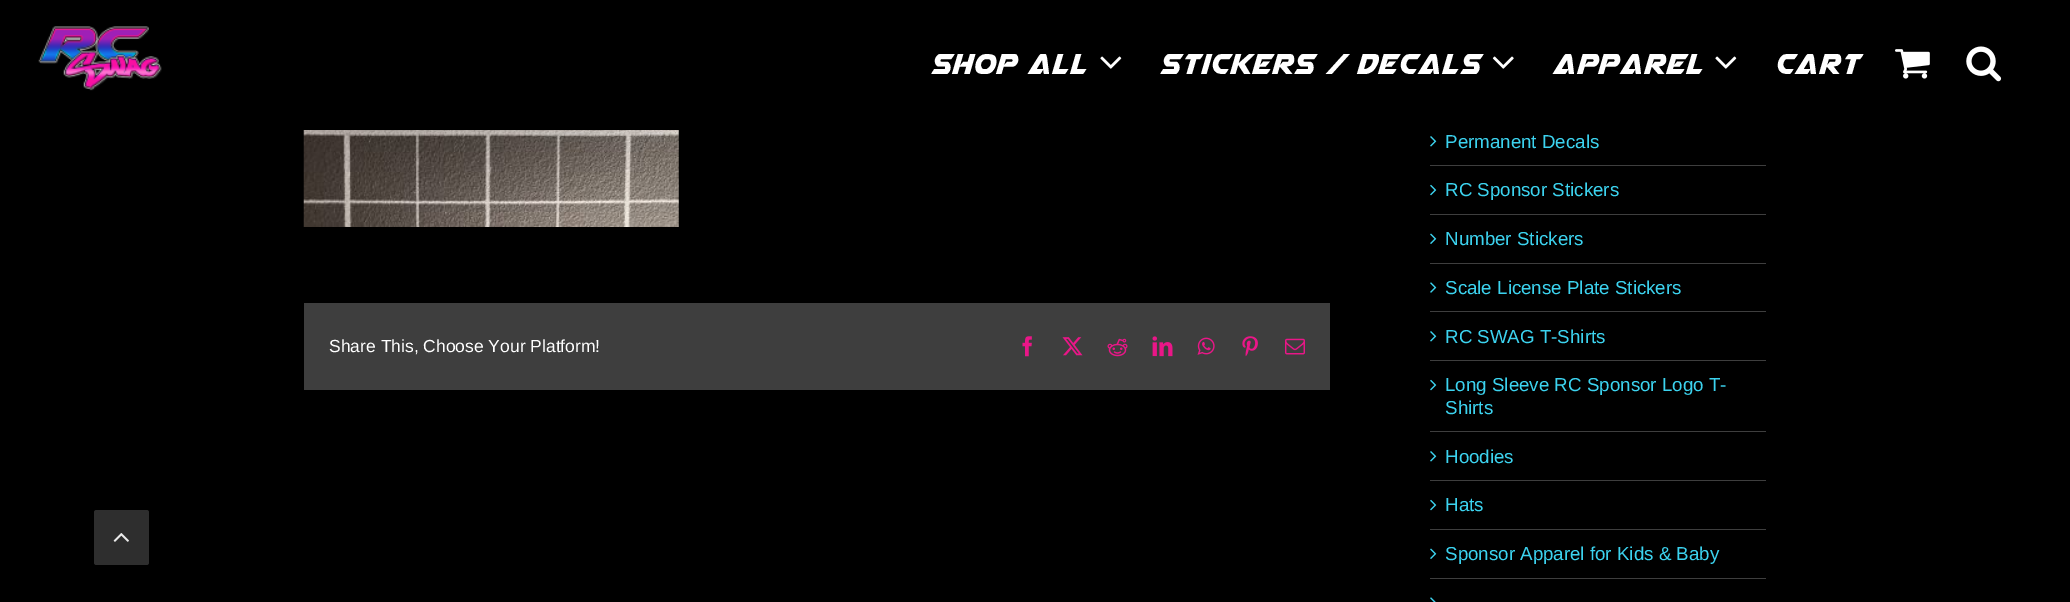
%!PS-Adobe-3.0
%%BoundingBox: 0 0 2070 602
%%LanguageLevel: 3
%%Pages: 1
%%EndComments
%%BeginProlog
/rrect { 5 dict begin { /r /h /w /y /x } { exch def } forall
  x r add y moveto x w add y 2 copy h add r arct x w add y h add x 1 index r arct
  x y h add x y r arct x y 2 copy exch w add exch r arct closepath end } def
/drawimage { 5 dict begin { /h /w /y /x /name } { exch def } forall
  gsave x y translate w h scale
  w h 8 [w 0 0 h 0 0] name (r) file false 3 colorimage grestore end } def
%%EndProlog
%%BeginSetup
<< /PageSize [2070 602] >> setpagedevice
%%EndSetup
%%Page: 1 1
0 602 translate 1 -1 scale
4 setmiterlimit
0 setgray
0 0 2070 602 rectfill
0.18 setgray
94 510 55 55 2.5 rrect fill
(images/1.raw) 113 533 16 9 drawimage
(images/2.raw) 38 26 124 65 drawimage
(images/3.raw) 1100 56 22 13 drawimage
(images/4.raw) 1492 56 22 13 drawimage
(images/3.raw) 1715 56 22 13 drawimage
(images/5.raw) 1895 49 35 30 drawimage
(images/6.raw) 1966 46 36 36 drawimage
(images/7.raw) 303 130 376 97 drawimage
0.243 setgray
304 303 1026 87 rectfill
(images/8.raw) 1022 336 10 21 drawimage
(images/9.raw) 1062 337 21 19 drawimage
(images/10.raw) 1107 338 21 19 drawimage
(images/11.raw) 1152 336 21 21 drawimage
(images/12.raw) 1197 337 18 18 drawimage
(images/13.raw) 1242 336 16 21 drawimage
(images/14.raw) 1285 338 20 17 drawimage
1430 165 336 1 rectfill
(images/15.raw) 1430 136 7 11 drawimage
1430 214 336 1 rectfill
(images/16.raw) 1430 184 7 12 drawimage
1430 263 336 1 rectfill
(images/17.raw) 1430 233 7 11 drawimage
1430 311 336 1 rectfill
(images/18.raw) 1430 282 7 11 drawimage
1430 360 336 1 rectfill
(images/15.raw) 1430 331 7 11 drawimage
1430 431 336 1 rectfill
(images/16.raw) 1430 379 7 12 drawimage
1430 480 336 1 rectfill
(images/15.raw) 1430 451 7 11 drawimage
1430 529 336 1 rectfill
(images/16.raw) 1430 499 7 12 drawimage
1430 578 336 1 rectfill
(images/17.raw) 1430 548 7 11 drawimage
(images/19.raw) 1430 597 6 5 drawimage
/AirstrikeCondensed-Regular [37.5 0 0 -37.5 0 0] selectfont
1 setgray
930 74 moveto 1.25 0 (Shop All) ashow
1159 74 moveto 1.25 0 (Stickers / Decals) ashow
1552 74 moveto 1.25 0 (Apparel) ashow
1774 74 moveto 1.25 0 (Cart) ashow
/LiberationSans-Regular [17.5 0 0 -17.5 0 0] selectfont
329 352 moveto (Share This, Choose Your Platform!) show
/LiberationSans-Regular [18.75 0 0 -18.75 0 0] selectfont
0.235 0.827 0.937 setrgbcolor
1445 148 moveto (Permanent Decals) show
1445 196 moveto (RC Sponsor Stickers) show
1445 245 moveto (Number Stickers) show
1445 294 moveto (Scale License Plate Stickers) show
1445 343 moveto (RC SWAG T-Shirts) show
1445 391 moveto (Long Sleeve RC Sponsor Logo T-) show
1445 414 moveto (Shirts) show
1445 463 moveto (Hoodies) show
1445 511 moveto (Hats) show
1445 560 moveto (Sponsor Apparel for Kids & Baby) show
showpage
%%EOF
